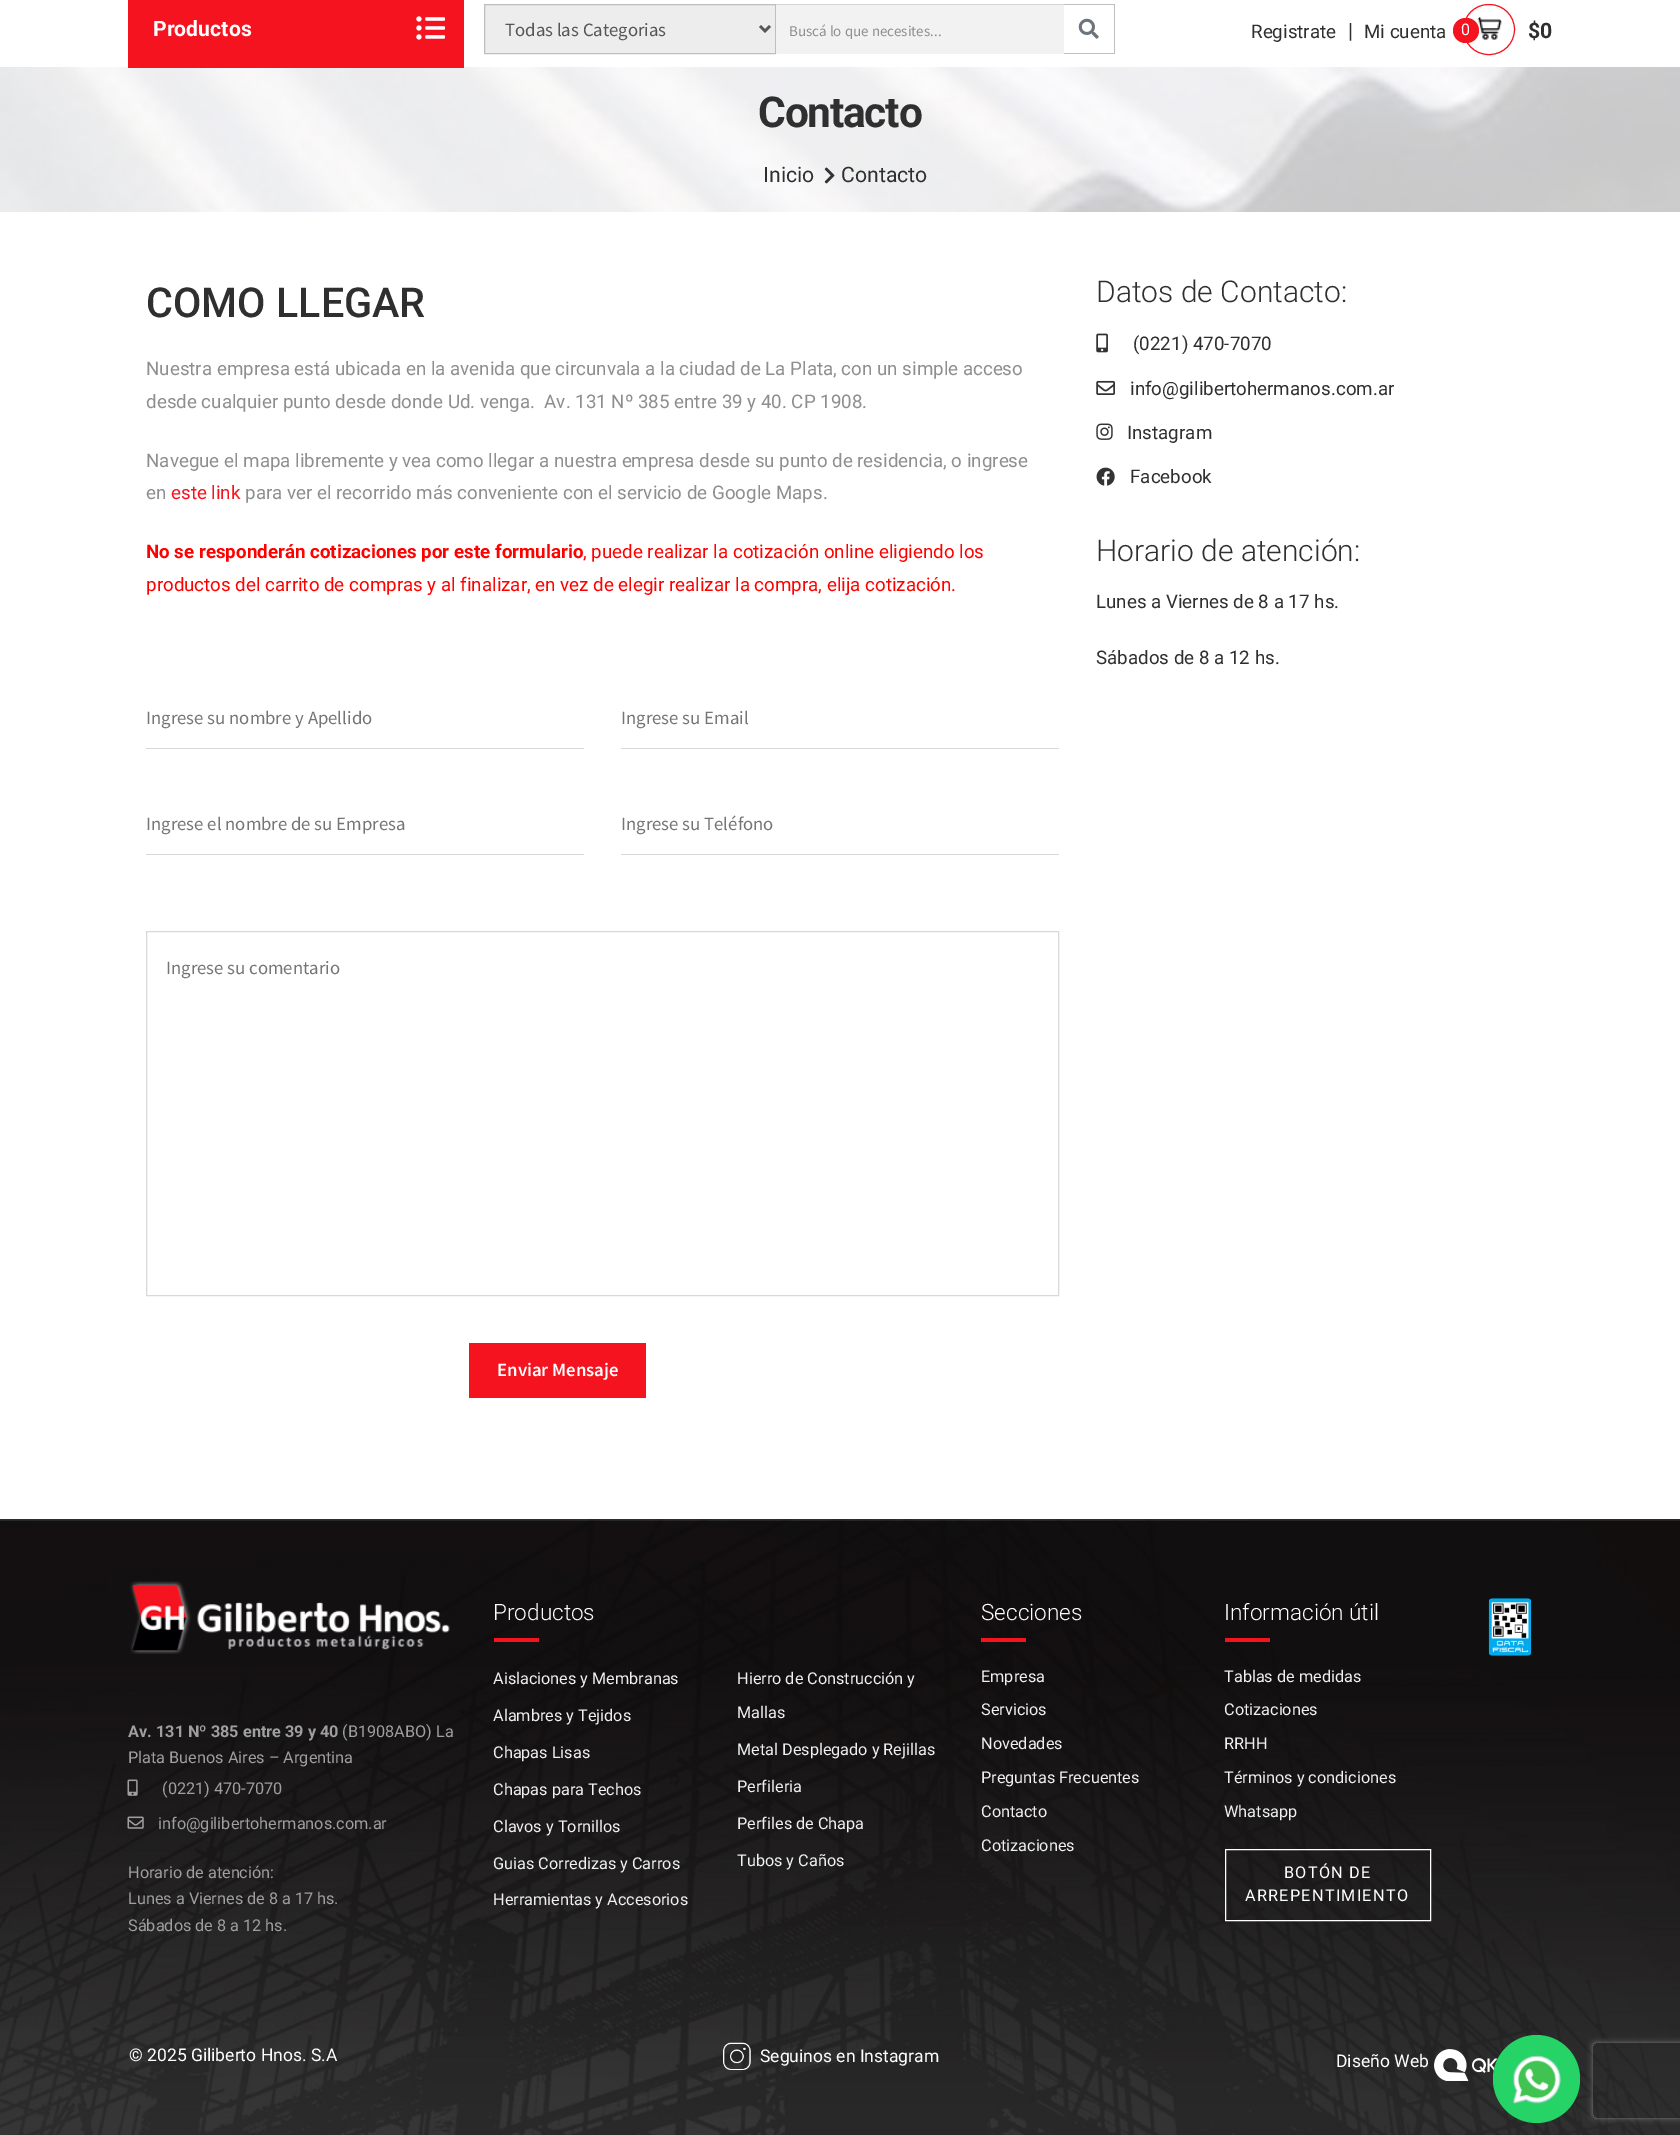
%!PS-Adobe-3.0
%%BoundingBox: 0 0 1680 2135
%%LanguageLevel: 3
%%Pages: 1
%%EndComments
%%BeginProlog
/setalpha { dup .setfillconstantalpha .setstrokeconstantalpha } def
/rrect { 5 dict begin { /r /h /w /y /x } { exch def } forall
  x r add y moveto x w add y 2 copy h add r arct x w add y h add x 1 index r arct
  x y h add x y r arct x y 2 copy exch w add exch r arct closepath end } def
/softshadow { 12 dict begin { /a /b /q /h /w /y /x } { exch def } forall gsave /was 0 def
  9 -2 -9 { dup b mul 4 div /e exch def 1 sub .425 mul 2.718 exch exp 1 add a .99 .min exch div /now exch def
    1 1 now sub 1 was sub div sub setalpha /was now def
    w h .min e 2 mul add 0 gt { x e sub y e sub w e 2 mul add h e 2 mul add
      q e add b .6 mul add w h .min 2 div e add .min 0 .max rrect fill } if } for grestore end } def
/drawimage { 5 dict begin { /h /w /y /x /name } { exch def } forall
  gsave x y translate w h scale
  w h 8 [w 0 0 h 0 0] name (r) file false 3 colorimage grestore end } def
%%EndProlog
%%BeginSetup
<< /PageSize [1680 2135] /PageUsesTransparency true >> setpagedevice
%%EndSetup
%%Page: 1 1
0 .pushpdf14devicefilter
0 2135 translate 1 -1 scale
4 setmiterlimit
1 setgray
0 0 1680 2135 rectfill
(images/4.raw) 0 67 1680 145 drawimage
0.961 0.075 0.122 setrgbcolor
128 0 336 68 rectfill
(images/1.raw) 416 16 29 24 drawimage
0.929 setgray
newpath 484.5 4.5 moveto 775.5 4.5 lineto 775.5 53.5 lineto 484.5 53.5 lineto closepath gsave fill grestore
0.745 setgray
stroke
0.337 setgray
2.5 setlinewidth
newpath 760 26 moveto 765 31 lineto 770 26 lineto stroke
0.949 setgray
776 5 288 49 rectfill
0.831 setgray
776 4 288 1 rectfill
0.745 setgray
1064 4 51 1 rectfill
1114 4 1 50 rectfill
1064 53 51 1 rectfill
(images/2.raw) 1078 18 21 21 drawimage
0.961 0.075 0.122 setrgbcolor
1 setlinewidth
1463.5 4.5 51 50 25 rrect stroke
(images/3.raw) 1477 17 25 23 drawimage
1453 18 26 25 12.5 rrect fill
(images/5.raw) 824 167 11 17 drawimage
0.847 setgray
146 748 438 1 rectfill
621 748 438 1 rectfill
146 854 438 1 rectfill
621 854 438 1 rectfill
146.5 931.5 912 364 rectstroke
0.961 0.075 0.122 setrgbcolor
469 1343 177 55 rectfill
(images/6.raw) 1096 333 12 20 drawimage
(images/7.raw) 1096 380 19 15 drawimage
(images/8.raw) 1096 423 17 17 drawimage
(images/9.raw) 1096 467 19 19 drawimage
(images/10.raw) 0 1519 1680 616 drawimage
(images/11.raw) 130 1581 320 73 drawimage
(images/12.raw) 127 1779 11 17 drawimage
(images/13.raw) 127 1816 17 13 drawimage
494 1638 45 4 rectfill
981 1638 45 4 rectfill
1225 1638 45 4 rectfill
1 setgray
1225.5 1849.5 205 71 rectstroke
(images/14.raw) 1488 1598 44 58 drawimage
(images/15.raw) 723 2042 28 28 drawimage
(images/16.raw) 1434 2049 65 32 drawimage
0.145 0.827 0.4 setrgbcolor
1493 2035 87 88 43.5 rrect fill
(images/17.raw) 1512 2055 49 49 drawimage
gsave
newpath 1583 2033 moveto 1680 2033 lineto 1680 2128 lineto 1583 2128 lineto closepath 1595.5 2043 moveto 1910.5 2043 lineto 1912 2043 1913 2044 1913 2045.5 curveto 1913 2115.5 lineto 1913 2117 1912 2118 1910.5 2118 curveto 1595.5 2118 lineto 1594 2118 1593 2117 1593 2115.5 curveto 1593 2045.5 lineto 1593 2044 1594 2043 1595.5 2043 curveto closepath eoclip newpath
0.502 setgray
1593 2043 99 75 2.5 3 1 softshadow
grestore
/Roboto-Bold [21.25 0 0 -21.25 0 0] selectfont
1 setgray
153 36 moveto (Productos) show
/SourceSansPro-Regular [18.75 0 0 -18.75 0 0] selectfont
0.337 setgray
505 36 moveto (Todas las Categorias) show
/SourceSansPro-Regular [15 0 0 -15 0 0] selectfont
0.557 setgray
789 36 moveto (Buscá lo que necesites...) show
/Roboto-Regular [18.75 0 0 -18.75 0 0] selectfont
0.184 setgray
1251 38 moveto (Registrate) show
/Roboto-Regular [21.25 0 0 -21.25 0 0] selectfont
1348 38 moveto (|) show
/Roboto-Regular [18.75 0 0 -18.75 0 0] selectfont
1364 38 moveto (Mi cuenta) show
/Roboto-Regular [16 0 0 -16 0 0] selectfont
1 setgray
1461 35 moveto (0) show
/Roboto-Bold [21.25 0 0 -21.25 0 0] selectfont
0.184 setgray
1528 38 moveto ($0) show
/Roboto-Bold [42.5 0 0 -42.5 0 0] selectfont
758 127 moveto -1.25 0 (Contacto) ashow
/Roboto-Regular [21.25 0 0 -21.25 0 0] selectfont
763 182 moveto (Inicio) show
841 182 moveto (Contacto) show
/Roboto-Medium [41.25 0 0 -41.25 0 0] selectfont
146 317 moveto (COMO LLEGAR) show
/Roboto-Regular [18.75 0 0 -18.75 0 0] selectfont
0.557 setgray
146 375 moveto (Nuestra empresa está ubicada en la avenida que circunvala a la ciudad de La Plata, con un simple acceso) show
146 408 moveto (desde cualquier punto desde donde Ud. venga.  Av. 131 Nº 385 entre 39 y 40. CP 1908.) show
146 467 moveto (Navegue el mapa libremente y vea como llegar a nuestra empresa desde su punto de residencia, o ingrese) show
146 499 moveto (en) show
0.961 0.075 0.122 setrgbcolor
171 499 moveto (este link) show
0.557 setgray
245 499 moveto (para ver el recorrido más conveniente con el servicio de Google Maps.) show
/Roboto-Bold [18.75 0 0 -18.75 0 0] selectfont
1 0 0 setrgbcolor
146 558 moveto (No se responderán cotizaciones por este formulario) show
/Roboto-Regular [18.75 0 0 -18.75 0 0] selectfont
583 558 moveto (, puede realizar la cotización online eligiendo los) show
146 591 moveto (productos del carrito de compras y al finalizar, en vez de elegir realizar la compra, elija cotización.) show
/SourceSansPro-Regular [18.75 0 0 -18.75 0 0] selectfont
0.459 setgray
146 724 moveto (Ingrese su nombre y Apellido) show
621 724 moveto (Ingrese su Email) show
146 830 moveto (Ingrese el nombre de su Empresa) show
621 830 moveto (Ingrese su Teléfono) show
166 974 moveto (Ingrese su comentario) show
/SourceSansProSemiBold-SemiBold [18.75 0 0 -18.75 0 0] selectfont
1 setgray
497 1376 moveto (Enviar Mensaje) show
/Roboto-Light [30 0 0 -30 0 0] selectfont
0.184 setgray
1096 302 moveto (Datos de Contacto:) show
/Roboto-Regular [18.75 0 0 -18.75 0 0] selectfont
1133 350 moveto (\(0221\) 470-7070) show
1130 395 moveto (info@gilibertohermanos.com.ar) show
1127 439 moveto (Instagram) show
1130 483 moveto (Facebook) show
/Roboto-Light [30 0 0 -30 0 0] selectfont
1096 561 moveto (Horario de atención:) show
/Roboto-Regular [18.75 0 0 -18.75 0 0] selectfont
1096 608 moveto (Lunes a Viernes de 8 a 17 hs.) show
1096 664 moveto (Sábados de 8 a 12 hs.) show
/Roboto-Bold [16.25 0 0 -16.25 0 0] selectfont
0.624 setgray
128 1737 moveto (Av. 131 Nº 385 entre 39 y 40) show
/Roboto-Regular [16.25 0 0 -16.25 0 0] selectfont
342 1737 moveto (\(B1908ABO\) La) show
128 1763 moveto (Plata Buenos Aires – Argentina) show
162 1794 moveto (\(0221\) 470-7070) show
158 1829 moveto (info@gilibertohermanos.com.ar) show
128 1878 moveto (Horario de atención:) show
128 1904 moveto (Lunes a Viernes de 8 a 17 hs.) show
128 1931 moveto (Sábados de 8 a 12 hs.) show
/Roboto-Light [22.5 0 0 -22.5 0 0] selectfont
1 setgray
493 1620 moveto (Productos) show
/Roboto-Regular [16.25 0 0 -16.25 0 0] selectfont
0.941 setgray
493 1684 moveto (Aislaciones y Membranas) show
493 1721 moveto (Alambres y Tejidos) show
493 1758 moveto (Chapas Lisas) show
493 1795 moveto (Chapas para Techos) show
493 1832 moveto (Clavos y Tornillos) show
493 1869 moveto (Guias Corredizas y Carros) show
493 1905 moveto (Herramientas y Accesorios) show
737 1684 moveto (Hierro de Construcción y) show
737 1718 moveto (Mallas) show
737 1755 moveto (Metal Desplegado y Rejillas) show
737 1792 moveto (Perfileria) show
737 1829 moveto (Perfiles de Chapa) show
737 1866 moveto (Tubos y Caños) show
/Roboto-Light [22.5 0 0 -22.5 0 0] selectfont
1 setgray
981 1620 moveto (Secciones) show
/Roboto-Regular [16.25 0 0 -16.25 0 0] selectfont
0.941 setgray
981 1682 moveto (Empresa) show
981 1715 moveto (Servicios) show
981 1749 moveto (Novedades) show
981 1783 moveto (Preguntas Frecuentes) show
981 1817 moveto (Contacto) show
981 1851 moveto (Cotizaciones) show
/Roboto-Light [22.5 0 0 -22.5 0 0] selectfont
1 setgray
1224 1620 moveto (Información útil) show
/Roboto-Regular [16.25 0 0 -16.25 0 0] selectfont
0.941 setgray
1224 1682 moveto (Tablas de medidas) show
1224 1715 moveto (Cotizaciones) show
1224 1749 moveto (RRHH) show
1224 1783 moveto (Términos y condiciones) show
1224 1817 moveto (Whatsapp) show
1 setgray
1284 1878 moveto 1.25 0 (BOTÓN DE) ashow
1245 1901 moveto 1.25 0 (ARREPENTIMIENTO) ashow
/Roboto-Regular [17.5 0 0 -17.5 0 0] selectfont
129 2061 moveto (© 2025 Giliberto Hnos. S.A) show
760 2062 moveto (Seguinos en Instagram) show
1336 2067 moveto (Diseño Web) show
.poppdf14devicefilter showpage
%%EOF
